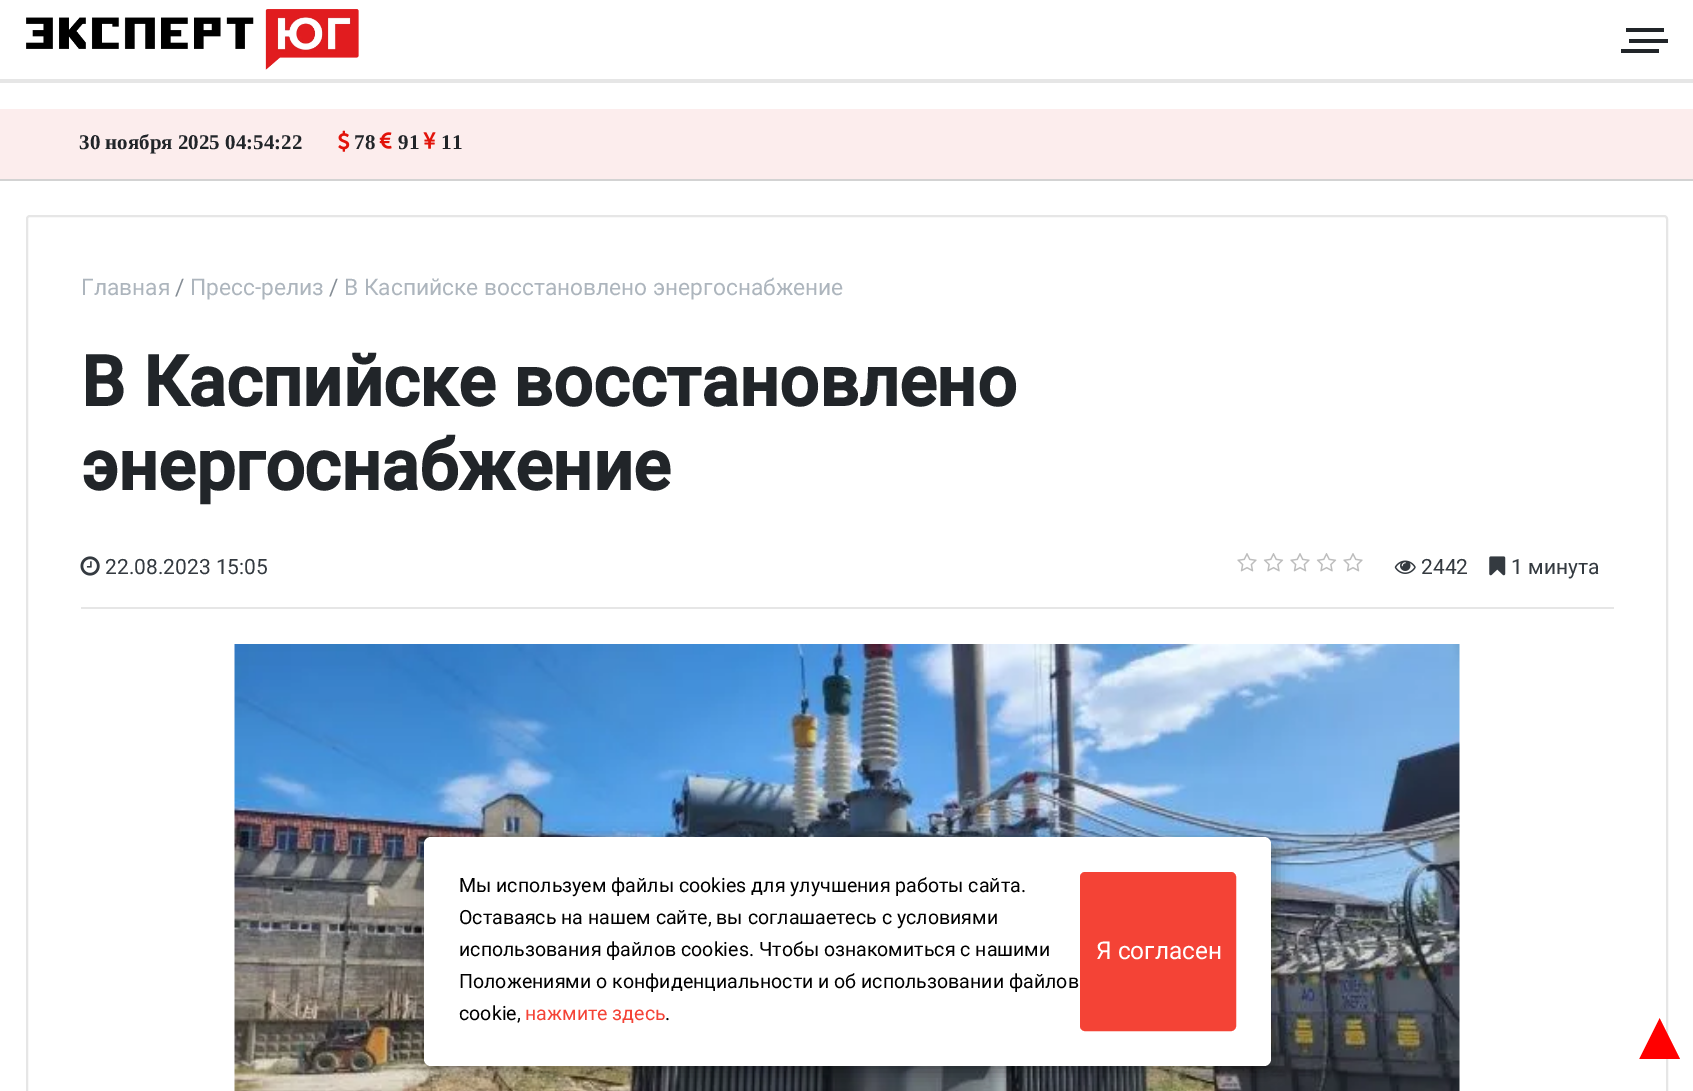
%!PS-Adobe-3.0
%%BoundingBox: 0 0 1693 1091
%%LanguageLevel: 3
%%Pages: 1
%%EndComments
%%BeginProlog
/setalpha { dup .setfillconstantalpha .setstrokeconstantalpha } def
/rrect { 5 dict begin { /r /h /w /y /x } { exch def } forall
  x r add y moveto x w add y 2 copy h add r arct x w add y h add x 1 index r arct
  x y h add x y r arct x y 2 copy exch w add exch r arct closepath end } def
/softshadow { 12 dict begin { /a /b /q /h /w /y /x } { exch def } forall gsave /was 0 def
  9 -2 -9 { dup b mul 4 div /e exch def 1 sub .425 mul 2.718 exch exp 1 add a .99 .min exch div /now exch def
    1 1 now sub 1 was sub div sub setalpha /was now def
    w h .min e 2 mul add 0 gt { x e sub y e sub w e 2 mul add h e 2 mul add
      q e add b .6 mul add w h .min 2 div e add .min 0 .max rrect fill } if } for grestore end } def
/drawimage { 5 dict begin { /h /w /y /x /name } { exch def } forall
  gsave x y translate w h scale
  w h 8 [w 0 0 h 0 0] name (r) file false 3 colorimage grestore end } def
%%EndProlog
%%BeginSetup
<< /PageSize [1693 1091] /PageUsesTransparency true >> setpagedevice
%%EndSetup
%%Page: 1 1
0 .pushpdf14devicefilter
0 1091 translate 1 -1 scale
4 setmiterlimit
1 setgray
0 0 1693 1091 rectfill
(images/1.raw) 26 9 333 61 drawimage
0.129 0.145 0.161 setrgbcolor
1629 39 39 4 rectfill
1626 28 38 4 rectfill
1621 49 38 4 rectfill
0.902 setgray
0 79 1693 4 rectfill
0.988 0.929 0.929 setrgbcolor
0 109 1693 70 rectfill
0.827 setgray
0 179 1693 2 rectfill
(images/2.raw) 338 130 12 22 drawimage
(images/3.raw) 379 132 13 17 drawimage
(images/4.raw) 423 132 13 17 drawimage
0.902 setgray
2 setlinewidth
27 216 1640 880 3 rrect stroke
81 607 1533 2 rectfill
(images/5.raw) 80 556 20 20 drawimage
(images/6.raw) 1237 553 126 19 drawimage
(images/7.raw) 1394 560 22 14 drawimage
(images/8.raw) 1489 556 17 20 drawimage
(images/9.raw) 234 644 1226 447 drawimage
0 setgray
427 842 847 229 7 9 0.4 softshadow
1 setgray
424 837 847 229 7 rrect fill
0.957 0.263 0.212 setrgbcolor
1081 873 154 157 4 rrect gsave fill grestore
stroke
/LiberationSerif-Bold [21 0 0 -21 0 0] selectfont
0.129 0.145 0.161 setrgbcolor
79 149 moveto (30 ноября 2025 04:54:22) show
354 149 moveto (78) show
398 149 moveto (91) show
441 149 moveto (11) show
/Roboto-Regular [22.75 0 0 -22.75 0 0] selectfont
0.678 0.71 0.741 setrgbcolor
81 295 moveto (Главная) show
0.525 0.557 0.588 setrgbcolor
175 295 moveto (/) show
0.678 0.71 0.741 setrgbcolor
190 295 moveto (Пресс-релиз) show
0.525 0.557 0.588 setrgbcolor
329 295 moveto (/) show
0.678 0.71 0.741 setrgbcolor
344 295 moveto (В Каспийске восстановлено энергоснабжение) show
/Roboto-Bold [70 0 0 -70 0 0] selectfont
0.129 0.145 0.161 setrgbcolor
81 406 moveto (В Каспийске восстановлено) show
81 490 moveto (энергоснабжение) show
/Roboto-Regular [21 0 0 -21 0 0] selectfont
0.204 0.227 0.251 setrgbcolor
105 574 moveto (22.08.2023 15:05) show
1421 574 moveto (2442) show
1511 574 moveto (1 минута) show
/Roboto-Regular [19.6 0 0 -19.6 0 0] selectfont
0 setgray
459 892 moveto (Мы используем файлы cookies для улучшения работы сайта.) show
459 924 moveto (Оставаясь на нашем сайте, вы соглашаетесь с условиями) show
459 956 moveto (использования файлов cookies. Чтобы ознакомиться с нашими) show
459 988 moveto (Положениями о конфиденциальности и об использовании файлов) show
459 1020 moveto (cookie,) show
0.957 0.263 0.212 setrgbcolor
525 1020 moveto (нажмите здесь) show
0 setgray
665 1020 moveto (.) show
/Roboto-Regular [24.5 0 0 -24.5 0 0] selectfont
1 setgray
1096 959 moveto (Я согласен) show
/LiberationSans-Regular [70 0 0 -70 0 0] selectfont
1 0 0 setrgbcolor
1625 1059 moveto (▲) show
.poppdf14devicefilter showpage
%%EOF
